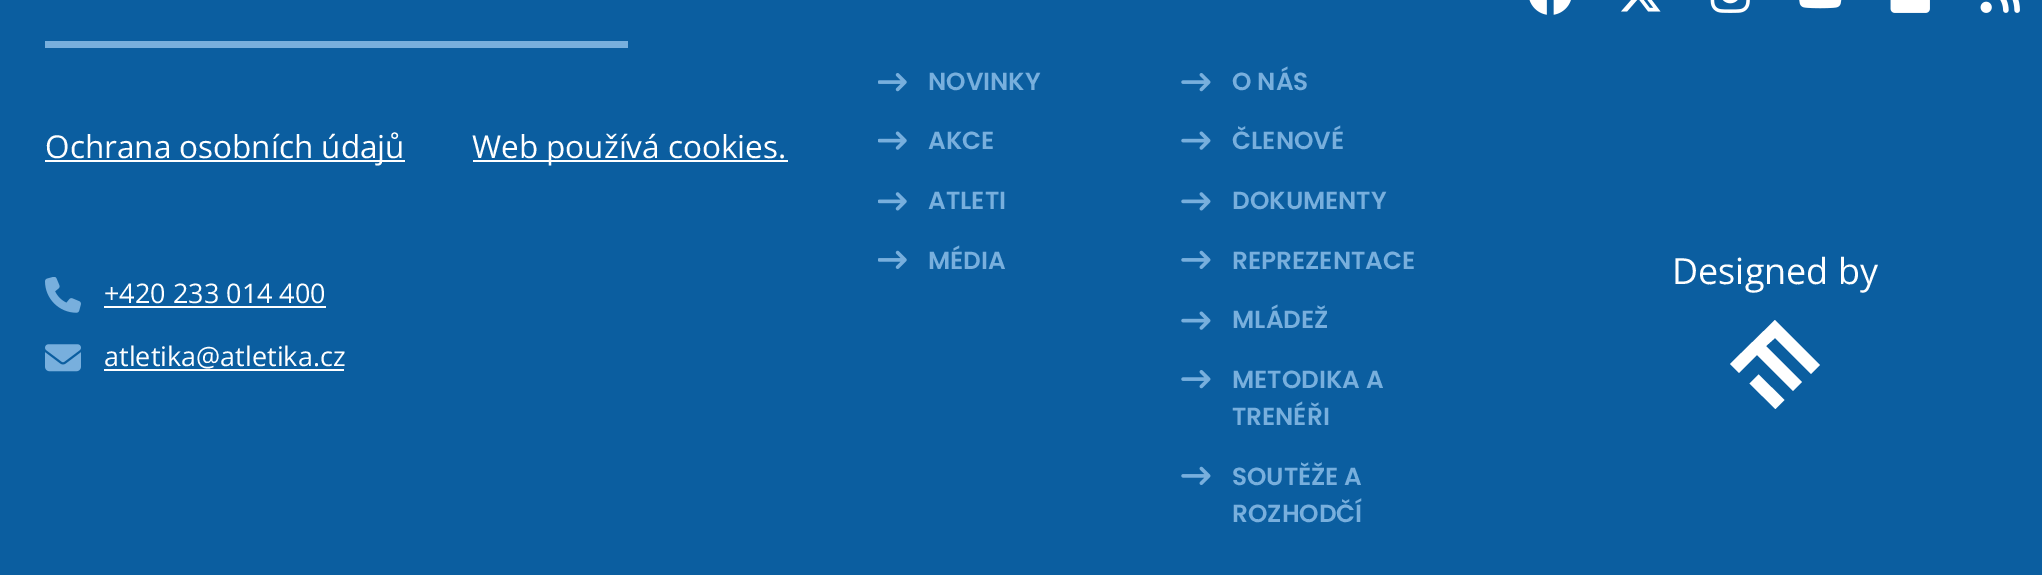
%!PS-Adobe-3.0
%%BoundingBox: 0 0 2042 575
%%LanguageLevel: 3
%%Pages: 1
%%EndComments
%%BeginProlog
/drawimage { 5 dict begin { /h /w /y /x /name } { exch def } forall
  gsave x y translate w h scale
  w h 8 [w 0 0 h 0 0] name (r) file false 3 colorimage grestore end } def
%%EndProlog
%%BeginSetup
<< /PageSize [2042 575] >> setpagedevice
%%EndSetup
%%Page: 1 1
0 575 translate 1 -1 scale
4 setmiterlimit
0.043 0.369 0.627 setrgbcolor
0 0 2042 575 rectfill
(images/1.raw) 1529 0 42 15 drawimage
(images/2.raw) 1621 0 40 12 drawimage
(images/3.raw) 1710 0 40 13 drawimage
(images/4.raw) 1799 0 43 9 drawimage
(images/5.raw) 1890 0 40 13 drawimage
(images/6.raw) 1980 0 40 13 drawimage
0.471 0.686 0.867 setrgbcolor
45 41 583 7 rectfill
1 setgray
45 160 360 2 rectfill
473 160 315 2 rectfill
(images/7.raw) 878 73 29 19 drawimage
(images/8.raw) 878 131 29 19 drawimage
(images/9.raw) 878 192 29 19 drawimage
(images/10.raw) 878 250 29 19 drawimage
(images/11.raw) 1181 73 30 19 drawimage
(images/12.raw) 1181 131 30 19 drawimage
(images/13.raw) 1181 192 30 19 drawimage
(images/14.raw) 1181 250 30 19 drawimage
(images/12.raw) 1181 311 30 19 drawimage
(images/11.raw) 1181 370 30 19 drawimage
(images/14.raw) 1181 466 30 19 drawimage
newpath 1775 320 moveto 1730 364 lineto 1739 373 lineto 1757 355 lineto 1793 391 lineto 1802 382 lineto 1766 346 lineto 1775 338 lineto 1811 374 lineto 1820 365 lineto closepath fill
newpath 1784.5 400 moveto 1775.5 409 lineto 1749.5 383.5 lineto 1758.5 374.5 lineto closepath fill
(images/15.raw) 45 277 36 36 drawimage
104 306 222 2 rectfill
(images/16.raw) 45 344 36 28 drawimage
104 369 240 2 rectfill
/OpenSans-Regular [31.5 0 0 -31.5 0 0] selectfont
45 158 moveto (Ochrana osobních údajů) show
472 158 moveto (Web používá cookies.) show
/Poppins-SemiBold [24.75 0 0 -24.75 0 0] selectfont
0.471 0.686 0.867 setrgbcolor
928 90 moveto (NOVINKY) show
928 149 moveto (AKCE) show
928 209 moveto (ATLETI) show
928 269 moveto (MÉDIA) show
1232 90 moveto (O NÁS) show
1232 149 moveto (ČLENOVÉ) show
1232 209 moveto (DOKUMENTY) show
1232 269 moveto (REPREZENTACE) show
1232 328 moveto (MLÁDEŽ) show
1232 388 moveto (METODIKA A) show
1232 425 moveto (TRENÉŘI) show
1232 485 moveto (SOUTĚŽE A) show
1232 522 moveto (ROZHODČÍ) show
/OpenSans-Regular [36 0 0 -36 0 0] selectfont
1 setgray
1672 284 moveto (Designed by) show
/OpenSans-Regular [27 0 0 -27 0 0] selectfont
104 303 moveto (+420 233 014 400) show
104 366 moveto (atletika@atletika.cz) show
showpage
%%EOF
